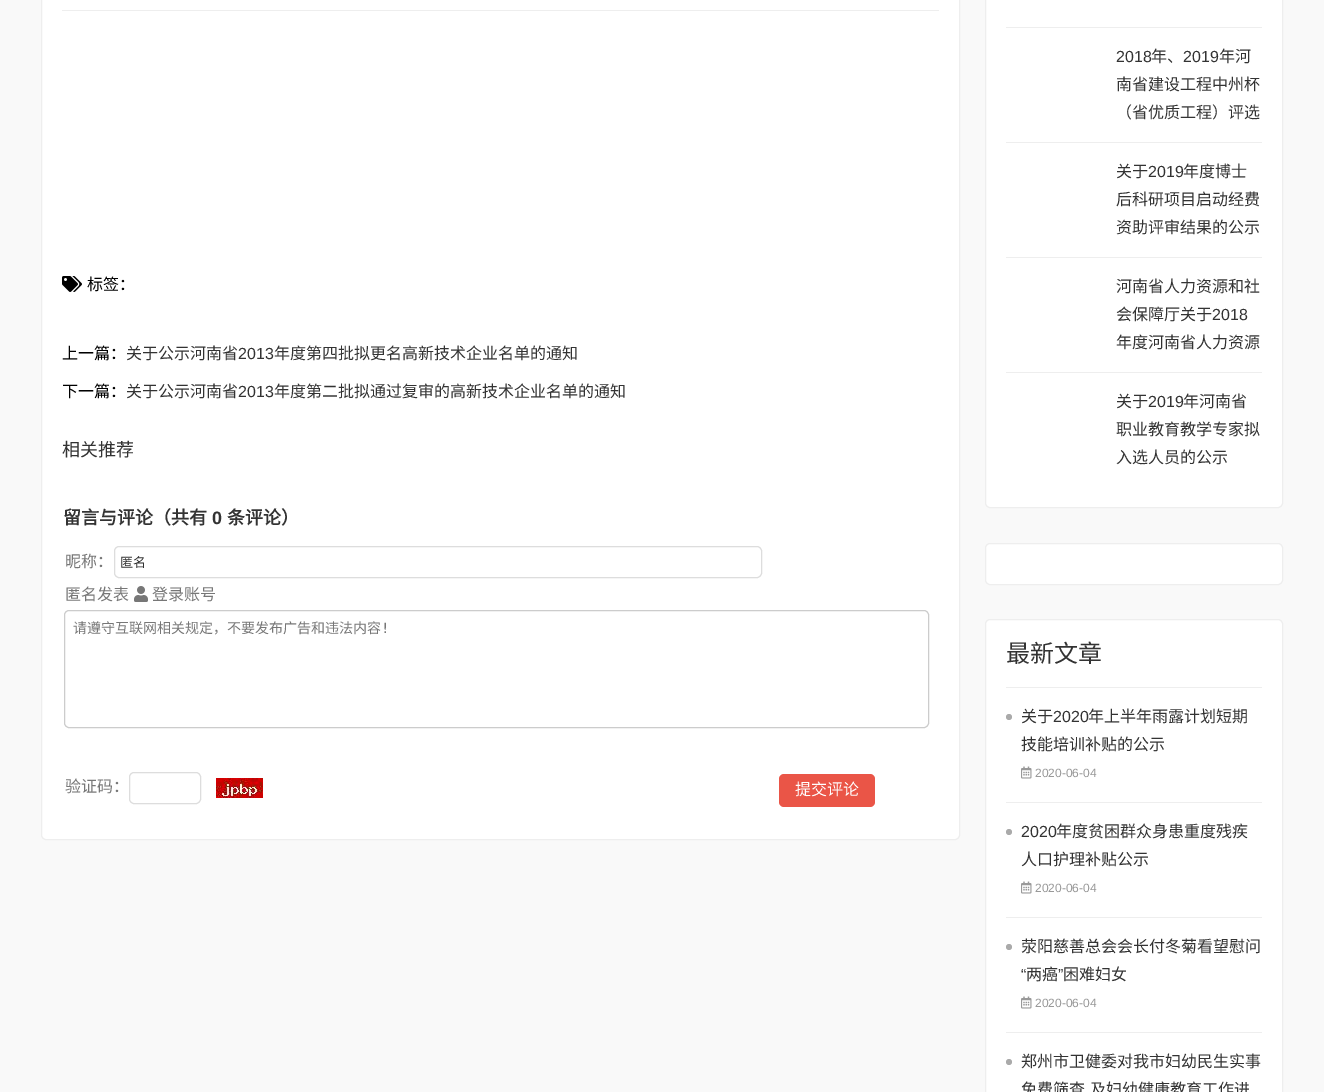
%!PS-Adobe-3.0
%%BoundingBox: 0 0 1324 1092
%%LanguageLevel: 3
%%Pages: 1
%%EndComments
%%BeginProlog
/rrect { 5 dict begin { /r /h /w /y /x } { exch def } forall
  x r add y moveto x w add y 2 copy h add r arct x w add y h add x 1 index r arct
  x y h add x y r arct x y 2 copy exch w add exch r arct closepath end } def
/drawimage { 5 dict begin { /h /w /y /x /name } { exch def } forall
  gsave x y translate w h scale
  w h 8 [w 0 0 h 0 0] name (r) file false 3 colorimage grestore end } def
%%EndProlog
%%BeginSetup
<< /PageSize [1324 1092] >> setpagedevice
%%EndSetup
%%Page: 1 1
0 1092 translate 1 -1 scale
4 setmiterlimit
0.976 setgray
0 0 1324 1092 rectfill
1 setgray
41.5 -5.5 918 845 4.5 rrect gsave fill grestore
0.933 setgray
stroke
62 10 877 1 rectfill
(images/1.raw) 62 276 20 16 drawimage
0.867 setgray
114.5 546.5 647 31 4.5 rrect stroke
(images/2.raw) 134 586 14 16 drawimage
0.8 setgray
64.5 610.5 864 117 4.5 rrect stroke
0.867 setgray
129.5 772.5 71 31 4.5 rrect stroke
(images/3.raw) 216 778 47 20 drawimage
0.918 0.333 0.278 setrgbcolor
779 774 96 33 5 rrect fill
1 setgray
985.5 -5.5 297 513 4.5 rrect gsave fill grestore
0.933 setgray
stroke
1006 27 256 1 rectfill
1006 142 256 1 rectfill
1006 257 256 1 rectfill
1006 372 256 1 rectfill
1 setgray
985.5 543.5 297 41 4.5 rrect gsave fill grestore
0.933 setgray
stroke
1 setgray
985.5 619.5 297 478 4.5 rrect gsave fill grestore
0.933 setgray
stroke
1006 687 256 1 rectfill
0.667 setgray
newpath 1009 717 3 0 360 arc closepath fill
(images/4.raw) 1021 766 11 13 drawimage
0.933 setgray
1006 802 256 1 rectfill
0.667 setgray
newpath 1009 832 3 0 360 arc closepath fill
(images/4.raw) 1021 881 11 13 drawimage
0.933 setgray
1006 917 256 1 rectfill
0.667 setgray
newpath 1009 947 3 0 360 arc closepath fill
(images/4.raw) 1021 996 11 13 drawimage
0.933 setgray
1006 1032 256 1 rectfill
0.667 setgray
newpath 1009 1062 3 0 360 arc closepath fill
/NotoSansCJKSC-Regular [16 0 0 -16 0 0] selectfont
0 setgray
87 290 moveto (标签：) show
62 359 moveto (上一篇：) show
0.2 setgray
126 359 moveto (关于公示河南省) show
/LiberationSans-Regular [16 0 0 -16 0 0] selectfont
238 359 moveto (2013) show
/NotoSansCJKSC-Regular [16 0 0 -16 0 0] selectfont
274 359 moveto (年度第四批拟更名高新技术企业名单的通知) show
0 setgray
62 397 moveto (下一篇：) show
0.2 setgray
126 397 moveto (关于公示河南省) show
/LiberationSans-Regular [16 0 0 -16 0 0] selectfont
238 397 moveto (2013) show
/NotoSansCJKSC-Regular [16 0 0 -16 0 0] selectfont
274 397 moveto (年度第二批拟通过复审的高新技术企业名单的通知) show
/NotoSansCJKSC-Regular [18 0 0 -18 0 0] selectfont
62 456 moveto (相关推荐) show
/NotoSansCJKSC-Bold [18 0 0 -18 0 0] selectfont
63 524 moveto (留言与评论（共有) show
/LiberationSans-Bold [18 0 0 -18 0 0] selectfont
212 524 moveto (0) show
/NotoSansCJKSC-Bold [18 0 0 -18 0 0] selectfont
227 524 moveto (条评论）) show
/NotoSansCJKSC-Regular [16 0 0 -16 0 0] selectfont
0.467 setgray
65 567 moveto (昵称：) show
/NotoSansCJKSC-Regular [13 0 0 -13 0 0] selectfont
0.2 setgray
120 567 moveto (匿名) show
/NotoSansCJKSC-Regular [16 0 0 -16 0 0] selectfont
0.467 setgray
65 600 moveto (匿名发表) show
152 600 moveto (登录账号) show
/NotoSansCJKSC-Regular [14 0 0 -14 0 0] selectfont
73 633 moveto (请遵守互联网相关规定，不要发布广告和违法内容) show
/DejaVuSansMono-Regular [14 0 0 -14 0 0] selectfont
381 633 moveto (!) show
/NotoSansCJKSC-Regular [16 0 0 -16 0 0] selectfont
65 792 moveto (验证码：) show
1 setgray
795 795 moveto (提交评论) show
/LiberationSans-Regular [16 0 0 -16 0 0] selectfont
0.2 setgray
1116 62 moveto (2018) show
/NotoSansCJKSC-Regular [16 0 0 -16 0 0] selectfont
1151 62 moveto (年、) show
/LiberationSans-Regular [16 0 0 -16 0 0] selectfont
1183 62 moveto (2019) show
/NotoSansCJKSC-Regular [16 0 0 -16 0 0] selectfont
1219 62 moveto (年河) show
1116 90 moveto (南省建设工程中州杯) show
1116 118 moveto (（省优质工程）评选) show
1116 177 moveto (关于) show
/LiberationSans-Regular [16 0 0 -16 0 0] selectfont
1148 177 moveto (2019) show
/NotoSansCJKSC-Regular [16 0 0 -16 0 0] selectfont
1183 177 moveto (年度博士) show
1116 205 moveto (后科研项目启动经费) show
1116 233 moveto (资助评审结果的公示) show
1116 292 moveto (河南省人力资源和社) show
1116 320 moveto (会保障厅关于) show
/LiberationSans-Regular [16 0 0 -16 0 0] selectfont
1212 320 moveto (2018) show
/NotoSansCJKSC-Regular [16 0 0 -16 0 0] selectfont
1116 348 moveto (年度河南省人力资源) show
1116 407 moveto (关于) show
/LiberationSans-Regular [16 0 0 -16 0 0] selectfont
1148 407 moveto (2019) show
/NotoSansCJKSC-Regular [16 0 0 -16 0 0] selectfont
1183 407 moveto (年河南省) show
1116 435 moveto (职业教育教学专家拟) show
1116 463 moveto (入选人员的公示) show
/NotoSansCJKSC-Regular [24 0 0 -24 0 0] selectfont
1006 662 moveto (最新文章) show
/NotoSansCJKSC-Regular [16 0 0 -16 0 0] selectfont
1021 722 moveto (关于) show
/LiberationSans-Regular [16 0 0 -16 0 0] selectfont
1053 722 moveto (2020) show
/NotoSansCJKSC-Regular [16 0 0 -16 0 0] selectfont
1088 722 moveto (年上半年雨露计划短期) show
1021 750 moveto (技能培训补贴的公示) show
/LiberationSans-Regular [12 0 0 -12 0 0] selectfont
0.6 setgray
1035 777 moveto (2020-06-04) show
/LiberationSans-Regular [16 0 0 -16 0 0] selectfont
0.2 setgray
1021 837 moveto (2020) show
/NotoSansCJKSC-Regular [16 0 0 -16 0 0] selectfont
1056 837 moveto (年度贫困群众身患重度残疾) show
1021 865 moveto (人口护理补贴公示) show
/LiberationSans-Regular [12 0 0 -12 0 0] selectfont
0.6 setgray
1035 892 moveto (2020-06-04) show
/NotoSansCJKSC-Regular [16 0 0 -16 0 0] selectfont
0.2 setgray
1021 952 moveto (荥阳慈善总会会长付冬菊看望慰问) show
/LiberationSans-Regular [16 0 0 -16 0 0] selectfont
1021 980 moveto (“) show
/NotoSansCJKSC-Regular [16 0 0 -16 0 0] selectfont
1026 980 moveto (两癌) show
/LiberationSans-Regular [16 0 0 -16 0 0] selectfont
1058 980 moveto (”) show
/NotoSansCJKSC-Regular [16 0 0 -16 0 0] selectfont
1063 980 moveto (困难妇女) show
/LiberationSans-Regular [12 0 0 -12 0 0] selectfont
0.6 setgray
1035 1007 moveto (2020-06-04) show
/NotoSansCJKSC-Regular [16 0 0 -16 0 0] selectfont
0.2 setgray
1021 1067 moveto (郑州市卫健委对我市妇幼民生实事) show
1021 1095 moveto 1 0 32 (免费筛查 及妇幼健康教育工作进) widthshow
showpage
%%EOF
